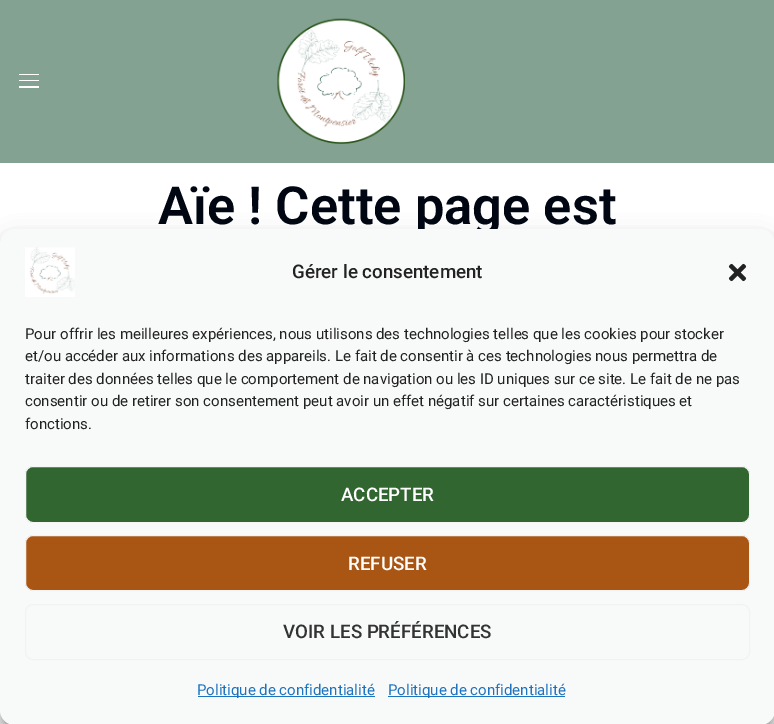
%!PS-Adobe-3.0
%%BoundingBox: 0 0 774 724
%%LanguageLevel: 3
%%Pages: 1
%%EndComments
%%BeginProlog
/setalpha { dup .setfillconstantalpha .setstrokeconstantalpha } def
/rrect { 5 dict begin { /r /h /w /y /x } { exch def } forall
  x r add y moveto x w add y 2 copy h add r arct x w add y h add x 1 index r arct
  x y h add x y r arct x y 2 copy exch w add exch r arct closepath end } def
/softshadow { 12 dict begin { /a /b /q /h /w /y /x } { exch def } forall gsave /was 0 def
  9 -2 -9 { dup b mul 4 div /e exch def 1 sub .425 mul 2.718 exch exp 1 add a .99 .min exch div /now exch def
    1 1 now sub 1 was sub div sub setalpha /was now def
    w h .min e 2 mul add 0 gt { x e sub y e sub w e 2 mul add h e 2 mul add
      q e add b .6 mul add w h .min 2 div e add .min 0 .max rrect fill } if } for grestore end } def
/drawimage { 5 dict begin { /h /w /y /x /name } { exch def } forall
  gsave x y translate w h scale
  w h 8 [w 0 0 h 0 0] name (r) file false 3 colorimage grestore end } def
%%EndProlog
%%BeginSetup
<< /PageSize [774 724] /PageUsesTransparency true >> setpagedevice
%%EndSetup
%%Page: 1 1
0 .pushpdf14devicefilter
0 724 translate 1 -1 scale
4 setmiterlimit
1 setgray
0 0 774 724 rectfill
0.518 0.635 0.569 setrgbcolor
0 0 774 163 rectfill
1 setgray
19 74 20 1 rectfill
19 80 20 1 rectfill
19 86 20 2 rectfill
(images/1.raw) 277 18 128 126 drawimage
0 setgray
0 236 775 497 15 4 0.23 softshadow
0 241 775 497 15 12.5 0.19 softshadow
/Roboto-SemiBold [52.5 0 0 -52.5 0 0] selectfont
0 0.024 0.071 setrgbcolor
158 224 moveto (Aïe ! Cette page est) show
0.973 0.976 0.976 setrgbcolor
0 229 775 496 15 rrect fill
(images/2.raw) 25 247 50 50 drawimage
/Roboto-Medium [18.75 0 0 -18.75 0 0] selectfont
0.133 setgray
292 278 moveto (Gérer le consentement) show
(images/3.raw) 728 263 19 19 drawimage
/Roboto-Regular [15 0 0 -15 0 0] selectfont
25 339 moveto (Pour offrir les meilleures expériences, nous utilisons des technologies telles que les cookies pour stocker) show
25 361 moveto (et/ou accéder aux informations des appareils. Le fait de consentir à ces technologies nous permettra de) show
25 384 moveto (traiter des données telles que le comportement de navigation ou les ID uniques sur ce site. Le fait de ne pas) show
25 406 moveto (consentir ou de retirer son consentement peut avoir un effet négatif sur certaines caractéristiques et) show
25 429 moveto (fonctions.) show
0.196 0.4 0.188 setrgbcolor
25.5 466.5 724 56 7.5 rrect gsave fill grestore
0.965 setgray
stroke
/Roboto-Medium [18.75 0 0 -18.75 0 0] selectfont
1 setgray
341 501 moveto (ACCEPTER) show
0.663 0.337 0.082 setrgbcolor
25.5 535.5 724 55 7.5 rrect gsave fill grestore
0.949 setgray
stroke
1 setgray
348 570 moveto (REFUSER) show
0.949 setgray
25.5 604.5 724 55 7.5 rrect stroke
0.2 setgray
283 638 moveto (VOIR LES PRÉFÉRENCES) show
0.118 0.451 0.745 setrgbcolor
198 696 177 1 rectfill
/Roboto-Regular [15 0 0 -15 0 0] selectfont
197 695 moveto (Politique de confidentialité) show
388 696 177 1 rectfill
388 695 moveto (Politique de confidentialité) show
.poppdf14devicefilter showpage
%%EOF
